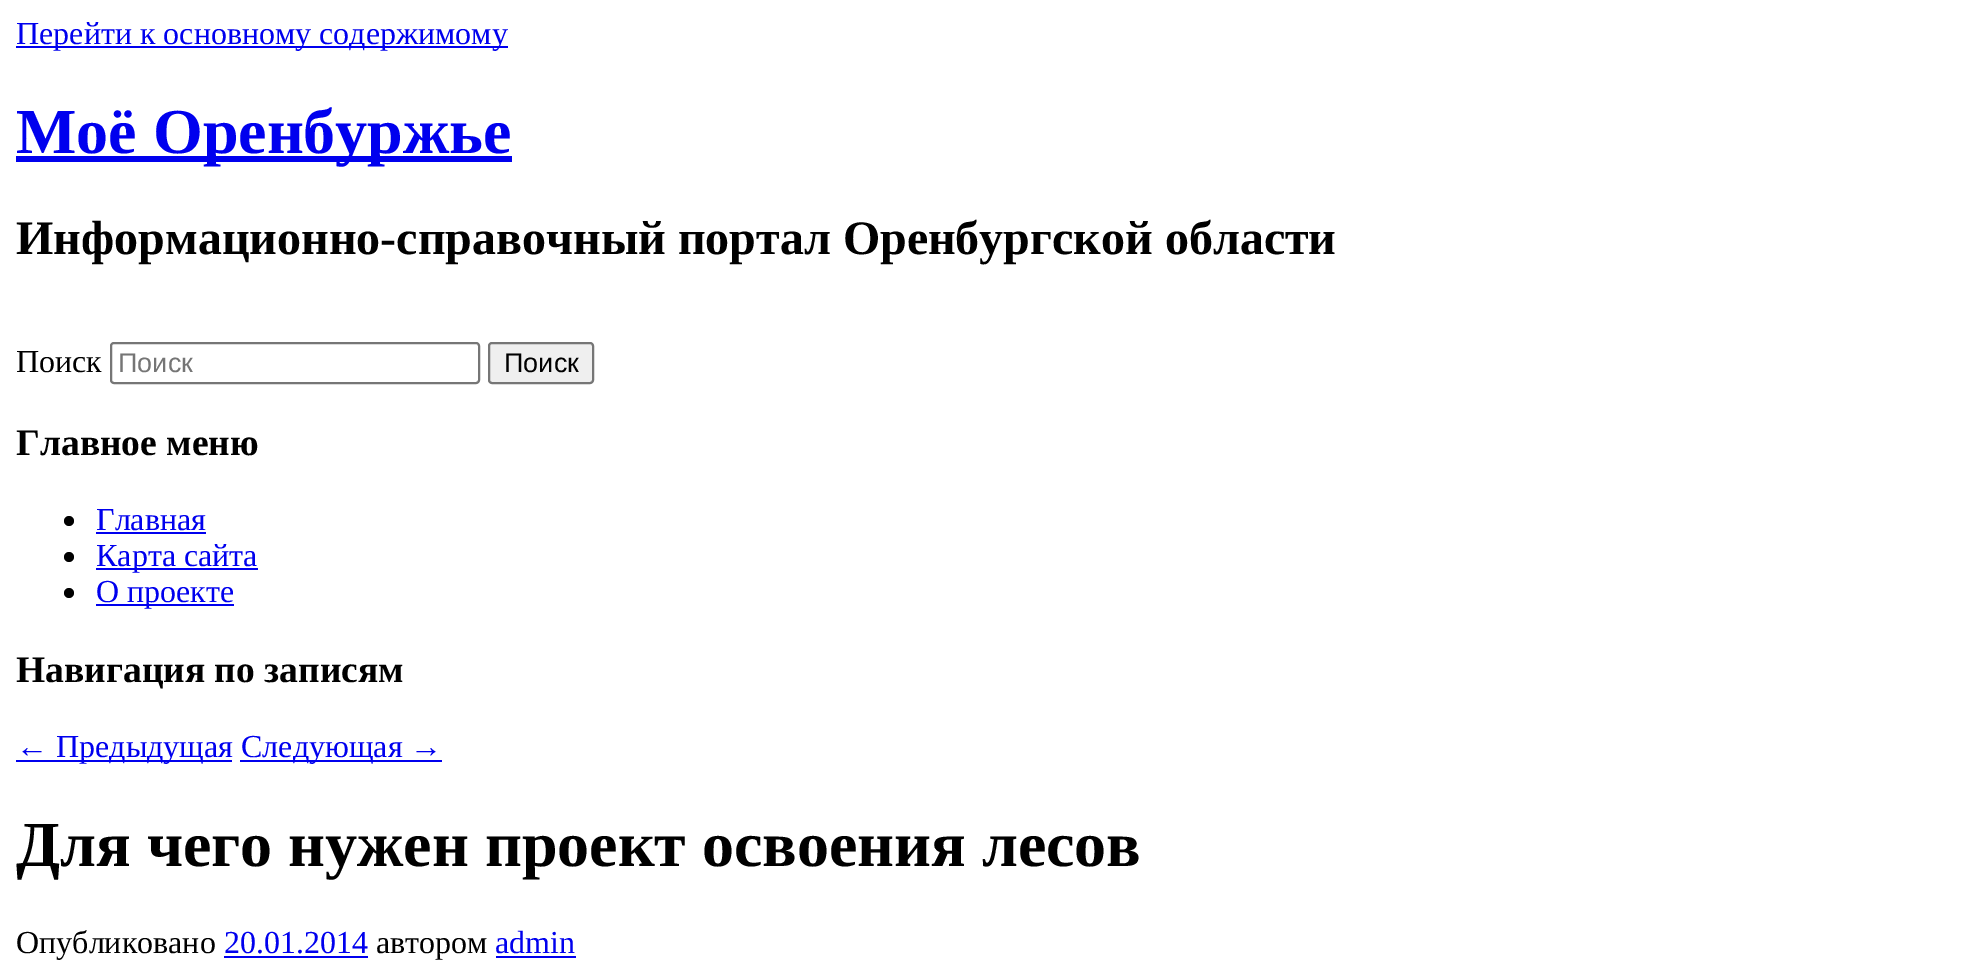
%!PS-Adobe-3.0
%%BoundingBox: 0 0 1969 970
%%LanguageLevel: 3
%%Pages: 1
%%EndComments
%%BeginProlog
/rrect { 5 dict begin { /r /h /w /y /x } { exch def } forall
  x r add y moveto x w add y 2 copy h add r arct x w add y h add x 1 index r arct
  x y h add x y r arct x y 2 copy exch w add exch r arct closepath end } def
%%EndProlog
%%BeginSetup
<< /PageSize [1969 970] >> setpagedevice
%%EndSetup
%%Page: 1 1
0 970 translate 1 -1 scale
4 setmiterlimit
1 setgray
0 0 1969 970 rectfill
0 0 0.933 setrgbcolor
16 46 492 2 rectfill
16 156 496 6 rectfill
0.463 setgray
2 setlinewidth
111 343 368 40 3 rrect stroke
0.937 setgray
489 343 104 40 3 rrect gsave fill grestore
0.463 setgray
stroke
0 setgray
newpath 69 521 5 0 360 arc closepath fill
0 0 0.933 setrgbcolor
96 532 110 2 rectfill
0 setgray
newpath 69 557 5 0 360 arc closepath fill
0 0 0.933 setrgbcolor
96 568 162 2 rectfill
0 setgray
newpath 69 593 5 0 360 arc closepath fill
0 0 0.933 setrgbcolor
96 604 138 2 rectfill
16 760 216 2 rectfill
240 760 202 2 rectfill
224 956 144 2 rectfill
496 956 80 2 rectfill
/LiberationSerif-Regular [32 0 0 -32 0 0] selectfont
16 44 moveto (Перейти к основному содержимому) show
/LiberationSerif-Bold [64 0 0 -64 0 0] selectfont
16 153 moveto (Моё Оренбуржье) show
/LiberationSerif-Bold [48 0 0 -48 0 0] selectfont
0 setgray
16 254 moveto (Информационно-справочный портал Оренбургской области) show
/LiberationSerif-Regular [32 0 0 -32 0 0] selectfont
16 372 moveto (Поиск) show
/LiberationSans-Regular [27 0 0 -27 0 0] selectfont
0.459 setgray
118 372 moveto (Поиск) show
0 setgray
504 372 moveto (Поиск) show
/LiberationSerif-Bold [37.5 0 0 -37.5 0 0] selectfont
16 455 moveto (Главное меню) show
/LiberationSerif-Regular [32 0 0 -32 0 0] selectfont
0 0 0.933 setrgbcolor
96 530 moveto (Главная) show
96 566 moveto (Карта сайта) show
96 602 moveto (О проекте) show
/LiberationSerif-Bold [37.5 0 0 -37.5 0 0] selectfont
0 setgray
16 682 moveto (Навигация по записям) show
/LiberationSerif-Regular [32 0 0 -32 0 0] selectfont
0 0 0.933 setrgbcolor
16 757 moveto (← Предыдущая) show
241 757 moveto (Следующая →) show
/LiberationSerif-Bold [64 0 0 -64 0 0] selectfont
0 setgray
16 866 moveto (Для чего нужен проект освоения лесов) show
/LiberationSerif-Regular [32 0 0 -32 0 0] selectfont
16 953 moveto (Опубликовано) show
0 0 0.933 setrgbcolor
224 953 moveto (20.01.2014) show
0 setgray
376 953 moveto (автором) show
0 0 0.933 setrgbcolor
495 953 moveto (admin) show
showpage
%%EOF
